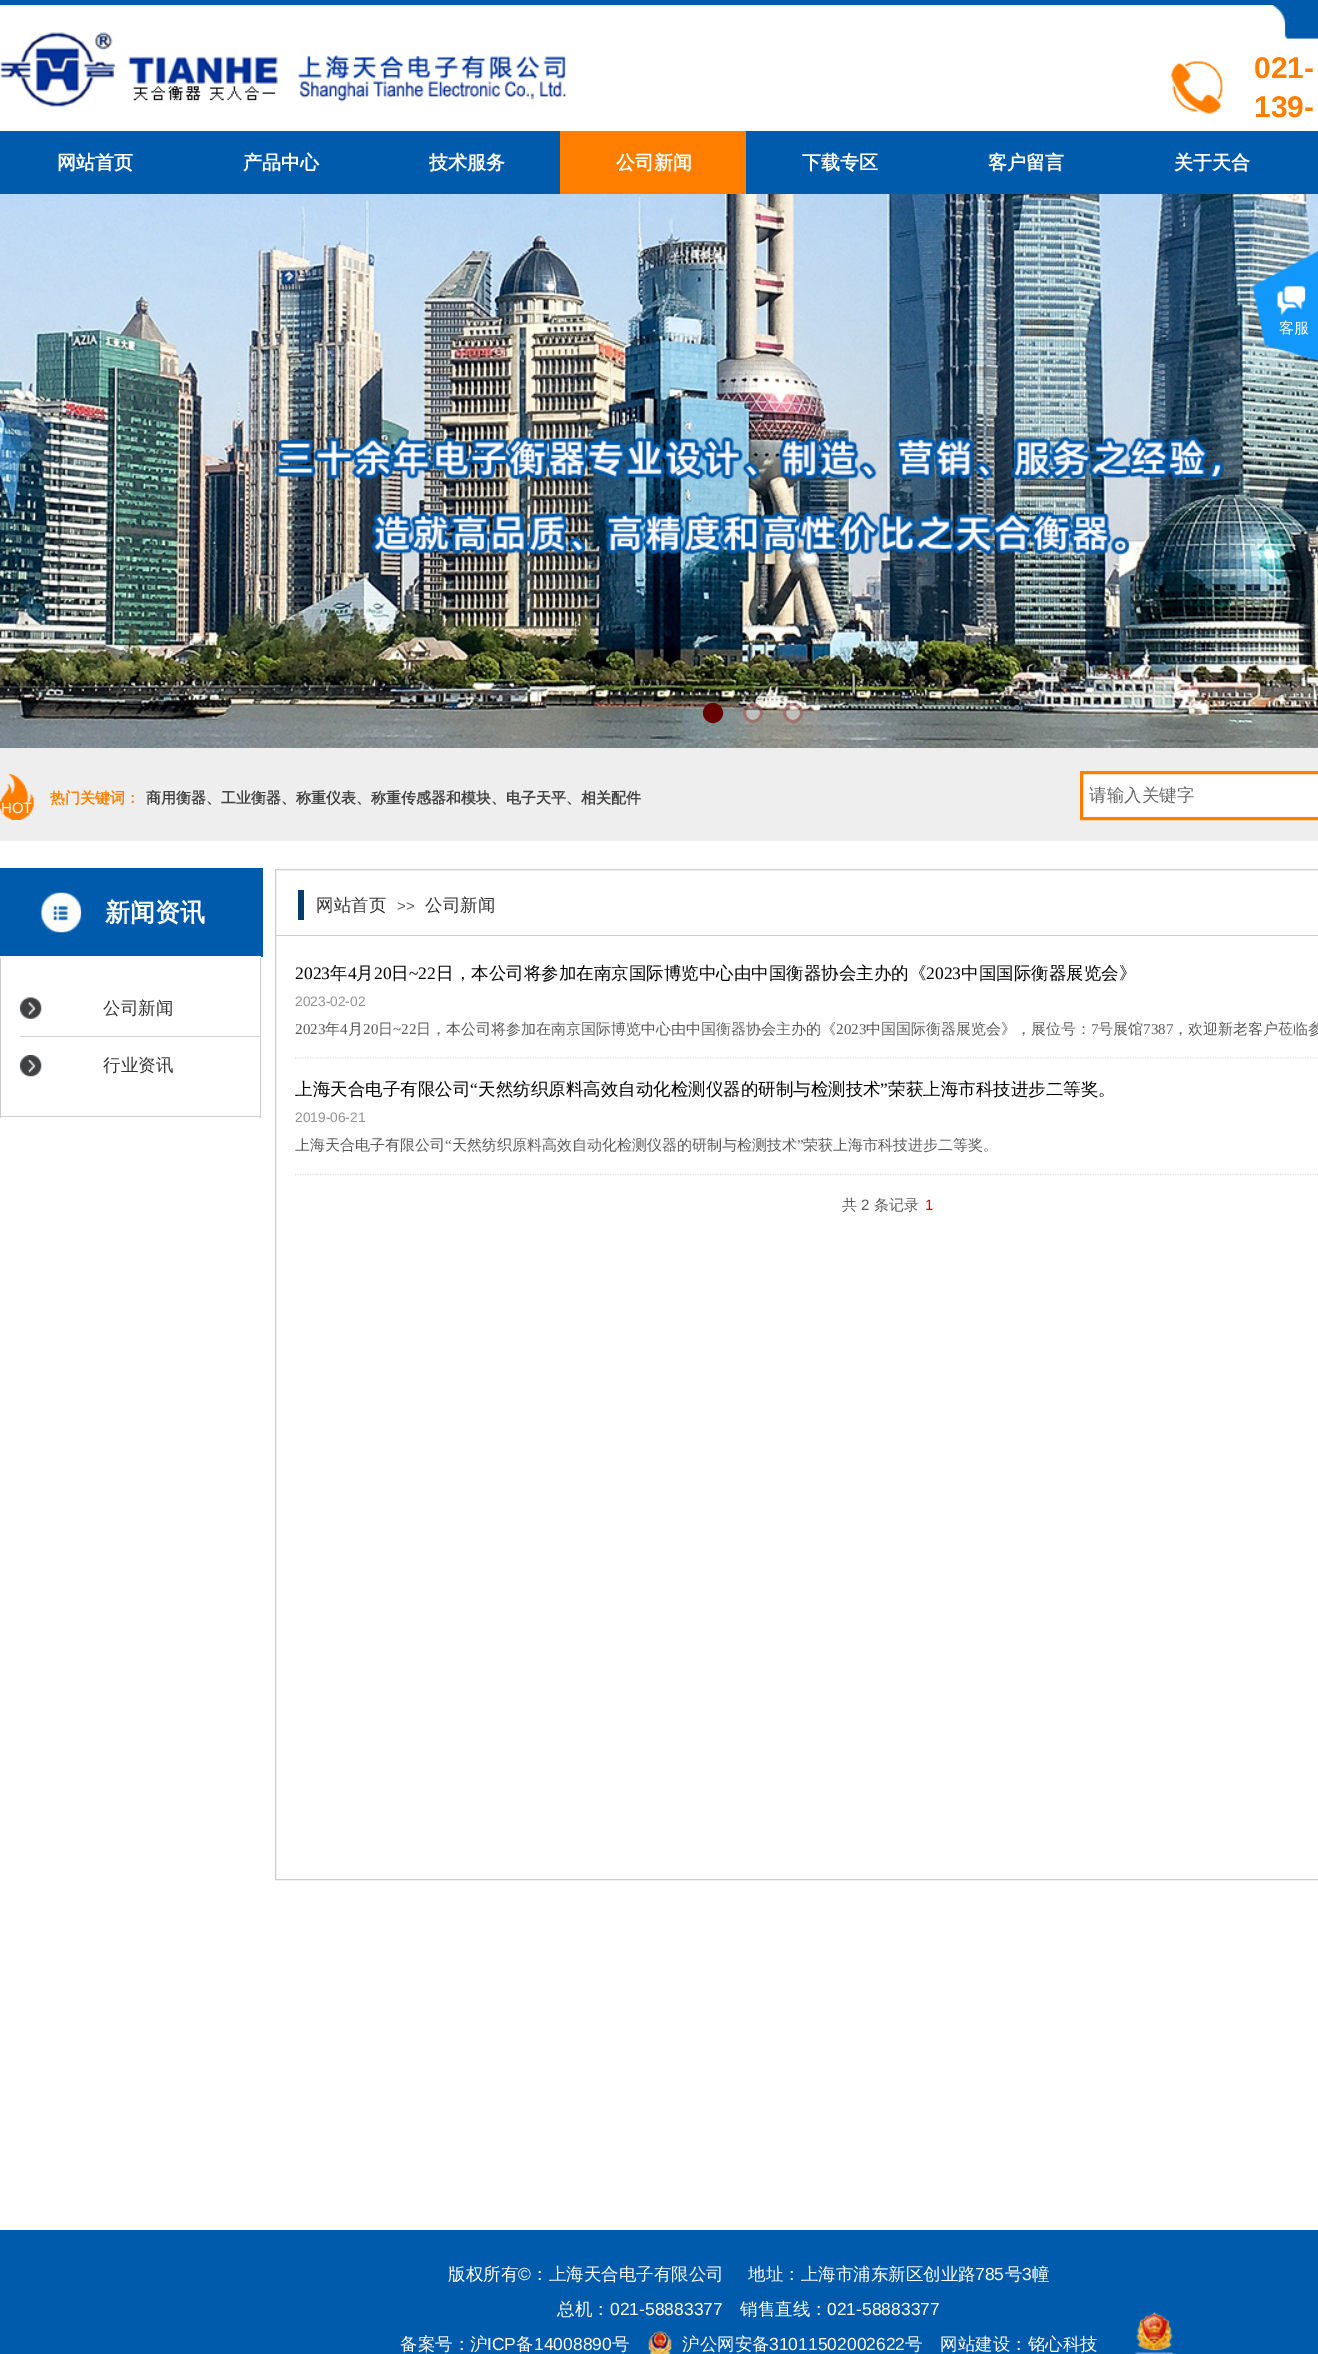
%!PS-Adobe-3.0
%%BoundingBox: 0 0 1318 2354
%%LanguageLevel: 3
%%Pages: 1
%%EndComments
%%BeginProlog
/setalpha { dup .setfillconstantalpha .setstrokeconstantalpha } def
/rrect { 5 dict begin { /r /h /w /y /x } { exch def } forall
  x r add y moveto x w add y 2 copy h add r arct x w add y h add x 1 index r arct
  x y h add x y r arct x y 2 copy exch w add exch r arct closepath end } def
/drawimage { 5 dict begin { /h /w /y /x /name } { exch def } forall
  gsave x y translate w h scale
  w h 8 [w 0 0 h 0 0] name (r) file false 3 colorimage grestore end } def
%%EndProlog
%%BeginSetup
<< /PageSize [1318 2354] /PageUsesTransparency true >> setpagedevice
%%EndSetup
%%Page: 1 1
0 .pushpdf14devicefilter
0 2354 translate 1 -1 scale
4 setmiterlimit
1 setgray
0 0 1318 2354 rectfill
0 0.357 0.675 setrgbcolor
0 0 1318 5 rectfill
(images/1.raw) 1272 5 46 34 drawimage
(images/2.raw) 0 30 570 77 drawimage
(images/3.raw) 1171 61 52 53 drawimage
0 131 1318 63 rectfill
1 0.494 0 setrgbcolor
560 131 186 63 rectfill
(images/4.raw) 0 194 1318 554 drawimage
0.4 0 0 setrgbcolor
newpath 713 713 8.5 0 360 arc closepath gsave fill grestore
3 setlinewidth
stroke
0.4 setalpha
1 setgray
newpath 753 713 10 0 360 arc closepath fill
0.4 0 0 setrgbcolor
newpath 753 713 8.5 0 360 arc closepath stroke
1 setgray
newpath 793 713 10 0 360 arc closepath fill
0.4 0 0 setrgbcolor
newpath 793 713 8.5 0 360 arc closepath stroke
1 setalpha
0.933 setgray
0 748 1318 93 rectfill
(images/5.raw) 0 773 34 47 drawimage
1 setgray
newpath 1081.5 772.5 moveto 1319.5 772.5 lineto 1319.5 818.5 lineto 1081.5 818.5 lineto closepath gsave fill grestore
1 0.494 0 setrgbcolor
stroke
0 0.357 0.675 setrgbcolor
0 868 263 89 rectfill
(images/6.raw) 41 892 41 41 drawimage
0.8 setgray
1 setlinewidth
275.5 869.5 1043 1010 rectstroke
0 0.239 0.451 setrgbcolor
298 890 6 30 rectfill
0.8 setgray
275 935 1043 1 rectfill
0.886 setgray
1.2 setlinewidth
[1.25 1.25] 0 setdash
newpath 295 1058 moveto 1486 1058 lineto stroke
newpath 295 1174.5 moveto 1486 1174.5 lineto stroke
1 setgray
0 956 261 162 1 rrect fill
0.8 setgray
260 958 1 160 rectfill
1 1116 260 1 rectfill
0 958 1 160 rectfill
(images/7.raw) 20 997 22 22 drawimage
0.816 setgray
20 1036 240 1 rectfill
(images/8.raw) 20 1055 22 22 drawimage
0 0.357 0.675 setrgbcolor
0 2230 1318 124 rectfill
(images/9.raw) 1134 2312 42 42 drawimage
(images/10.raw) 648 2331 24 23 drawimage
(images/11.raw) 1252 250 66 112 drawimage
/LiberationSans-Bold [30 0 0 -30 0 0] selectfont
1 0.494 0 setrgbcolor
1254 78 moveto (021-) show
1254 117 moveto (139-) show
/WenQuanYiZenHei-Bold [19 0 0 -19 0 0] selectfont
1 setgray
57 169 moveto (网站首页) show
243 169 moveto (产品中心) show
429 169 moveto (技术服务) show
616 169 moveto (公司新闻) show
802 169 moveto (下载专区) show
988 169 moveto (客户留言) show
1174 169 moveto (关于天合) show
/WenQuanYiZenHei-Bold [15 0 0 -15 0 0] selectfont
1 0.494 0 setrgbcolor
50 803 moveto (热门关键词：) show
0.263 setgray
146 803 moveto (商用衡器、工业衡器、称重仪表、称重传感器和模块、电子天平、相关配件) show
/WenQuanYiZenHei-Medium [17.5 0 0 -17.5 0 0] selectfont
0.4 setgray
1089 801 moveto (请输入关键字) show
/LiberationSans-Regular [15 0 0 -15 0 0] selectfont
1 setgray
1 813 moveto (HOT) show
/WenQuanYiZenHei-Bold [25 0 0 -25 0 0] selectfont
105 921 moveto (新闻资讯) show
/WenQuanYiZenHei-Medium [17.5 0 0 -17.5 0 0] selectfont
0.2 setgray
316 911 moveto (网站首页) show
/LiberationSans-Regular [15 0 0 -15 0 0] selectfont
0.353 setgray
397 911 moveto (>>) show
/WenQuanYiZenHei-Medium [17.5 0 0 -17.5 0 0] selectfont
0.2 setgray
425 911 moveto (公司新闻) show
/LiberationSerif-Regular [17.5 0 0 -17.5 0 0] selectfont
0 setgray
295 979 moveto (2023) show
/WenQuanYiZenHei-Medium [17.5 0 0 -17.5 0 0] selectfont
330 979 moveto (年) show
/LiberationSerif-Regular [17.5 0 0 -17.5 0 0] selectfont
348 979 moveto (4) show
/WenQuanYiZenHei-Medium [17.5 0 0 -17.5 0 0] selectfont
356 979 moveto (月) show
/LiberationSerif-Regular [17.5 0 0 -17.5 0 0] selectfont
374 979 moveto (20) show
/WenQuanYiZenHei-Medium [17.5 0 0 -17.5 0 0] selectfont
391 979 moveto (日) show
/LiberationSerif-Regular [17.5 0 0 -17.5 0 0] selectfont
409 979 moveto (~22) show
/WenQuanYiZenHei-Medium [17.5 0 0 -17.5 0 0] selectfont
436 979 moveto (日，本公司将参加在南京国际博览中心由中国衡器协会主办的《) show
/LiberationSerif-Regular [17.5 0 0 -17.5 0 0] selectfont
926 979 moveto (2023) show
/WenQuanYiZenHei-Medium [17.5 0 0 -17.5 0 0] selectfont
961 979 moveto (中国国际衡器展览会》) show
/LiberationSans-Regular [13.75 0 0 -13.75 0 0] selectfont
0.573 setgray
295 1006 moveto (2023-02-02) show
/LiberationSerif-Regular [15 0 0 -15 0 0] selectfont
0.353 setgray
295 1034 moveto (2023) show
/WenQuanYiZenHei-Medium [15 0 0 -15 0 0] selectfont
325 1034 moveto (年) show
/LiberationSerif-Regular [15 0 0 -15 0 0] selectfont
340 1034 moveto (4) show
/WenQuanYiZenHei-Medium [15 0 0 -15 0 0] selectfont
348 1034 moveto (月) show
/LiberationSerif-Regular [15 0 0 -15 0 0] selectfont
363 1034 moveto (20) show
/WenQuanYiZenHei-Medium [15 0 0 -15 0 0] selectfont
378 1034 moveto (日) show
/LiberationSerif-Regular [15 0 0 -15 0 0] selectfont
393 1034 moveto (~22) show
/WenQuanYiZenHei-Medium [15 0 0 -15 0 0] selectfont
416 1034 moveto (日，本公司将参加在南京国际博览中心由中国衡器协会主办的《) show
/LiberationSerif-Regular [15 0 0 -15 0 0] selectfont
836 1034 moveto (2023) show
/WenQuanYiZenHei-Medium [15 0 0 -15 0 0] selectfont
866 1034 moveto (中国国际衡器展览会》，展位号：) show
/LiberationSerif-Regular [15 0 0 -15 0 0] selectfont
1091 1034 moveto (7) show
/WenQuanYiZenHei-Medium [15 0 0 -15 0 0] selectfont
1098 1034 moveto (号展馆) show
/LiberationSerif-Regular [15 0 0 -15 0 0] selectfont
1143 1034 moveto (7387) show
/WenQuanYiZenHei-Medium [15 0 0 -15 0 0] selectfont
1173 1034 moveto (，欢迎新老客户莅临参) show
/WenQuanYiZenHei-Medium [17.5 0 0 -17.5 0 0] selectfont
0 setgray
295 1095 moveto (上海天合电子有限公司) show
/LiberationSerif-Regular [17.5 0 0 -17.5 0 0] selectfont
470 1095 moveto (“) show
/WenQuanYiZenHei-Medium [17.5 0 0 -17.5 0 0] selectfont
478 1095 moveto (天然纺织原料高效自动化检测仪器的研制与检测技术) show
/LiberationSerif-Regular [17.5 0 0 -17.5 0 0] selectfont
880 1095 moveto (”) show
/WenQuanYiZenHei-Medium [17.5 0 0 -17.5 0 0] selectfont
888 1095 moveto (荣获上海市科技进步二等奖。) show
/LiberationSans-Regular [13.75 0 0 -13.75 0 0] selectfont
0.573 setgray
295 1122 moveto (2019-06-21) show
/WenQuanYiZenHei-Medium [15 0 0 -15 0 0] selectfont
0.353 setgray
295 1150 moveto (上海天合电子有限公司) show
/LiberationSerif-Regular [15 0 0 -15 0 0] selectfont
445 1150 moveto (“) show
/WenQuanYiZenHei-Medium [15 0 0 -15 0 0] selectfont
452 1150 moveto (天然纺织原料高效自动化检测仪器的研制与检测技术) show
/LiberationSerif-Regular [15 0 0 -15 0 0] selectfont
797 1150 moveto (”) show
/WenQuanYiZenHei-Medium [15 0 0 -15 0 0] selectfont
803 1150 moveto (荣获上海市科技进步二等奖。) show
842 1210 moveto (共) show
/LiberationSans-Regular [15 0 0 -15 0 0] selectfont
861 1210 moveto (2) show
/WenQuanYiZenHei-Medium [15 0 0 -15 0 0] selectfont
874 1210 moveto (条记录) show
/LiberationSans-Regular [15 0 0 -15 0 0] selectfont
0.867 0 0 setrgbcolor
925 1210 moveto (1) show
/WenQuanYiZenHei-Medium [17.5 0 0 -17.5 0 0] selectfont
0.2 setgray
103 1014 moveto (公司新闻) show
103 1071 moveto (行业资讯) show
1 setgray
448 2280 moveto (版权所有) show
/LiberationSans-Regular [17.5 0 0 -17.5 0 0] selectfont
518 2280 moveto (©) show
/WenQuanYiZenHei-Medium [17.5 0 0 -17.5 0 0] selectfont
531 2280 moveto (：上海天合电子有限公司) show
748 2280 moveto (地址：上海市浦东新区创业路) show
/LiberationSans-Regular [17.5 0 0 -17.5 0 0] selectfont
975 2280 moveto (785) show
/WenQuanYiZenHei-Medium [17.5 0 0 -17.5 0 0] selectfont
1005 2280 moveto (号) show
/LiberationSans-Regular [17.5 0 0 -17.5 0 0] selectfont
1022 2280 moveto (3) show
/WenQuanYiZenHei-Medium [17.5 0 0 -17.5 0 0] selectfont
1032 2280 moveto (幢) show
557 2315 moveto (总机：) show
/LiberationSans-Regular [17.5 0 0 -17.5 0 0] selectfont
610 2315 moveto (021-58883377) show
/WenQuanYiZenHei-Medium [17.5 0 0 -17.5 0 0] selectfont
740 2315 moveto (销售直线：) show
/LiberationSans-Regular [17.5 0 0 -17.5 0 0] selectfont
827 2315 moveto (021-58883377) show
/WenQuanYiZenHei-Medium [17.5 0 0 -17.5 0 0] selectfont
400 2350 moveto (备案号：沪) show
/LiberationSans-Regular [17.5 0 0 -17.5 0 0] selectfont
487 2350 moveto (ICP) show
/WenQuanYiZenHei-Medium [17.5 0 0 -17.5 0 0] selectfont
516 2350 moveto (备) show
/LiberationSans-Regular [17.5 0 0 -17.5 0 0] selectfont
534 2350 moveto (14008890) show
/WenQuanYiZenHei-Medium [17.5 0 0 -17.5 0 0] selectfont
612 2350 moveto (号) show
682 2350 moveto (沪公网安备) show
/LiberationSans-Regular [17.5 0 0 -17.5 0 0] selectfont
769 2350 moveto (31011502002622) show
/WenQuanYiZenHei-Medium [17.5 0 0 -17.5 0 0] selectfont
905 2350 moveto (号) show
940 2350 moveto (网站建设：铭心科技) show
/WenQuanYiZenHei-Medium [15 0 0 -15 0 0] selectfont
1279 333 moveto (客服) show
.poppdf14devicefilter showpage
%%EOF
